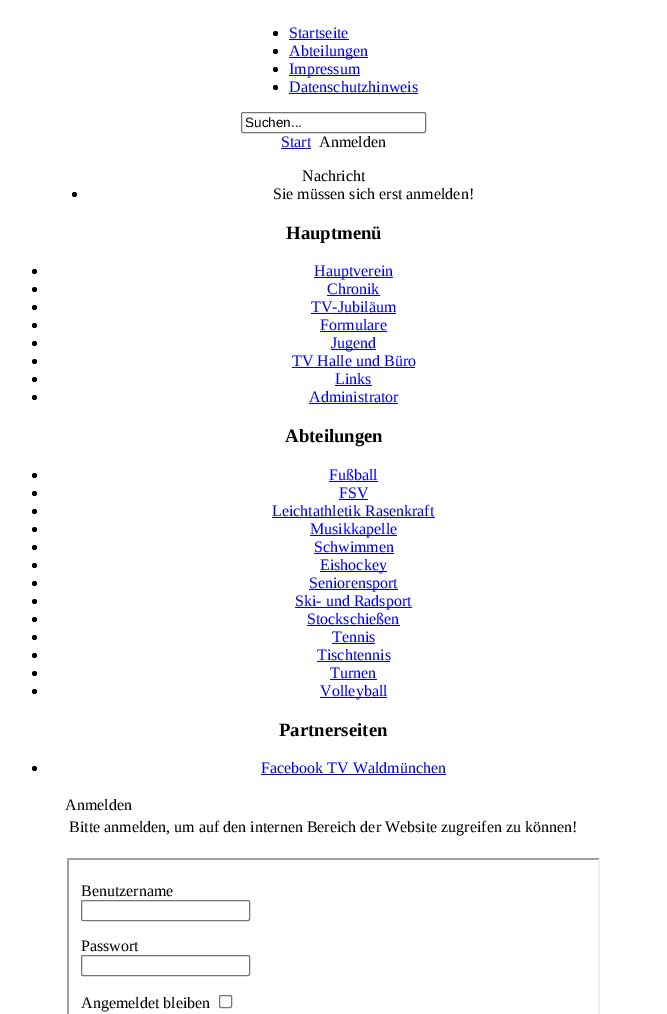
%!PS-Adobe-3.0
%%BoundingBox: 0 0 667 1014
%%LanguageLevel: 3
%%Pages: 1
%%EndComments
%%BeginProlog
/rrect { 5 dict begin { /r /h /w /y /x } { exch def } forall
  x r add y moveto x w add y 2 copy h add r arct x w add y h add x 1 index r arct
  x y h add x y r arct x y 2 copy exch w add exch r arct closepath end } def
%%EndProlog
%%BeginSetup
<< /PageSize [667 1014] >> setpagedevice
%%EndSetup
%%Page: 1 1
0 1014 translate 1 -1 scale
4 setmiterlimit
1 setgray
0 0 667 1014 rectfill
0 setgray
newpath 275.5 33.5 2.5 0 360 arc closepath fill
0 0 0.933 setrgbcolor
289 39 60 1 rectfill
0 setgray
newpath 275.5 51.5 2.5 0 360 arc closepath fill
0 0 0.933 setrgbcolor
289 57 79 1 rectfill
0 setgray
newpath 275.5 69.5 2.5 0 360 arc closepath fill
0 0 0.933 setrgbcolor
289 75 71 1 rectfill
0 setgray
newpath 275.5 87.5 2.5 0 360 arc closepath fill
0 0 0.933 setrgbcolor
289 93 129 1 rectfill
0.463 setgray
241.5 112.5 184 20 1.5 rrect stroke
0 0 0.933 setrgbcolor
281 148 30 1 rectfill
0 setgray
newpath 74.5 194.5 2.5 0 360 arc closepath fill
newpath 34.5 271.5 2.5 0 360 arc closepath fill
0 0 0.933 setrgbcolor
314 277 79 1 rectfill
0 setgray
newpath 34.5 289.5 2.5 0 360 arc closepath fill
0 0 0.933 setrgbcolor
327 295 53 1 rectfill
0 setgray
newpath 34.5 307.5 2.5 0 360 arc closepath fill
0 0 0.933 setrgbcolor
311 313 85 1 rectfill
0 setgray
newpath 34.5 325.5 2.5 0 360 arc closepath fill
0 0 0.933 setrgbcolor
320 331 67 1 rectfill
0 setgray
newpath 34.5 343.5 2.5 0 360 arc closepath fill
0 0 0.933 setrgbcolor
331 349 45 1 rectfill
0 setgray
newpath 34.5 361.5 2.5 0 360 arc closepath fill
0 0 0.933 setrgbcolor
292 367 123 1 rectfill
0 setgray
newpath 34.5 379.5 2.5 0 360 arc closepath fill
0 0 0.933 setrgbcolor
335 385 37 1 rectfill
0 setgray
newpath 34.5 397.5 2.5 0 360 arc closepath fill
0 0 0.933 setrgbcolor
309 403 89 1 rectfill
0 setgray
newpath 34.5 475.5 2.5 0 360 arc closepath fill
0 0 0.933 setrgbcolor
329 481 49 1 rectfill
0 setgray
newpath 34.5 493.5 2.5 0 360 arc closepath fill
0 0 0.933 setrgbcolor
339 499 29 1 rectfill
0 setgray
newpath 34.5 511.5 2.5 0 360 arc closepath fill
0 0 0.933 setrgbcolor
272 517 163 1 rectfill
0 setgray
newpath 34.5 529.5 2.5 0 360 arc closepath fill
0 0 0.933 setrgbcolor
310 535 87 1 rectfill
0 setgray
newpath 34.5 547.5 2.5 0 360 arc closepath fill
0 0 0.933 setrgbcolor
314 553 80 1 rectfill
0 setgray
newpath 34.5 565.5 2.5 0 360 arc closepath fill
0 0 0.933 setrgbcolor
320 571 67 1 rectfill
0 setgray
newpath 34.5 583.5 2.5 0 360 arc closepath fill
0 0 0.933 setrgbcolor
309 589 89 1 rectfill
0 setgray
newpath 34.5 601.5 2.5 0 360 arc closepath fill
0 0 0.933 setrgbcolor
295 607 117 1 rectfill
0 setgray
newpath 34.5 619.5 2.5 0 360 arc closepath fill
0 0 0.933 setrgbcolor
307 625 93 1 rectfill
0 setgray
newpath 34.5 637.5 2.5 0 360 arc closepath fill
0 0 0.933 setrgbcolor
332 643 43 1 rectfill
0 setgray
newpath 34.5 655.5 2.5 0 360 arc closepath fill
0 0 0.933 setrgbcolor
317 661 73 1 rectfill
0 setgray
newpath 34.5 673.5 2.5 0 360 arc closepath fill
0 0 0.933 setrgbcolor
330 679 47 1 rectfill
0 setgray
newpath 34.5 691.5 2.5 0 360 arc closepath fill
0 0 0.933 setrgbcolor
320 697 67 1 rectfill
0 setgray
newpath 34.5 768.5 2.5 0 360 arc closepath fill
0 0 0.933 setrgbcolor
261 774 185 1 rectfill
0.624 setgray
newpath 67 858 moveto 600 858 lineto 598 860 lineto 69 860 lineto closepath fill
0.937 setgray
newpath 600 858 moveto 600 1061 lineto 598 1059 lineto 598 860 lineto closepath fill
0.624 setgray
newpath 67 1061 moveto 67 858 lineto 69 860 lineto 69 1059 lineto closepath fill
0.463 setgray
81.5 900.5 168 20 1.5 rrect stroke
81.5 955.5 168 20 1.5 rrect stroke
219.5 995.5 12 12 1.5 rrect stroke
/LiberationSerif-Regular [16 0 0 -16 0 0] selectfont
0 0 0.933 setrgbcolor
289 38 moveto (Startseite) show
289 56 moveto (Abteilungen) show
289 74 moveto (Impressum) show
289 92 moveto (Datenschutzhinweis) show
/LiberationSans-Regular [13.5 0 0 -13.5 0 0] selectfont
0 setgray
245 127 moveto (Suchen...) show
/LiberationSerif-Regular [16 0 0 -16 0 0] selectfont
0 0 0.933 setrgbcolor
281 147 moveto (Start) show
0 setgray
319 147 moveto (Anmelden) show
302 181 moveto (Nachricht) show
273 199 moveto (Sie müssen sich erst anmelden!) show
/LiberationSerif-Bold [18.75 0 0 -18.75 0 0] selectfont
286 239 moveto (Hauptmenü) show
/LiberationSerif-Regular [16 0 0 -16 0 0] selectfont
0 0 0.933 setrgbcolor
314 276 moveto (Hauptverein) show
327 294 moveto (Chronik) show
311 312 moveto (TV-Jubiläum) show
320 330 moveto (Formulare) show
331 348 moveto (Jugend) show
292 366 moveto (TV Halle und Büro) show
335 384 moveto (Links) show
309 402 moveto (Administrator) show
/LiberationSerif-Bold [18.75 0 0 -18.75 0 0] selectfont
0 setgray
285 442 moveto (Abteilungen) show
/LiberationSerif-Regular [16 0 0 -16 0 0] selectfont
0 0 0.933 setrgbcolor
329 480 moveto (Fußball) show
339 498 moveto (FSV) show
272 516 moveto (Leichtathletik Rasenkraft) show
310 534 moveto (Musikkapelle) show
314 552 moveto (Schwimmen) show
320 570 moveto (Eishockey) show
309 588 moveto (Seniorensport) show
295 606 moveto (Ski- und Radsport) show
307 624 moveto (Stockschießen) show
332 642 moveto (Tennis) show
317 660 moveto (Tischtennis) show
330 678 moveto (Turnen) show
320 696 moveto (Volleyball) show
/LiberationSerif-Bold [18.75 0 0 -18.75 0 0] selectfont
0 setgray
279 736 moveto (Partnerseiten) show
/LiberationSerif-Regular [16 0 0 -16 0 0] selectfont
0 0 0.933 setrgbcolor
261 773 moveto (Facebook TV Waldmünchen) show
0 setgray
65 810 moveto (Anmelden) show
69 832 moveto (Bitte anmelden, um auf den internen Bereich der Website zugreifen zu können!) show
81 896 moveto (Benutzername) show
81 951 moveto (Passwort) show
81 1008 moveto (Angemeldet bleiben) show
showpage
%%EOF
